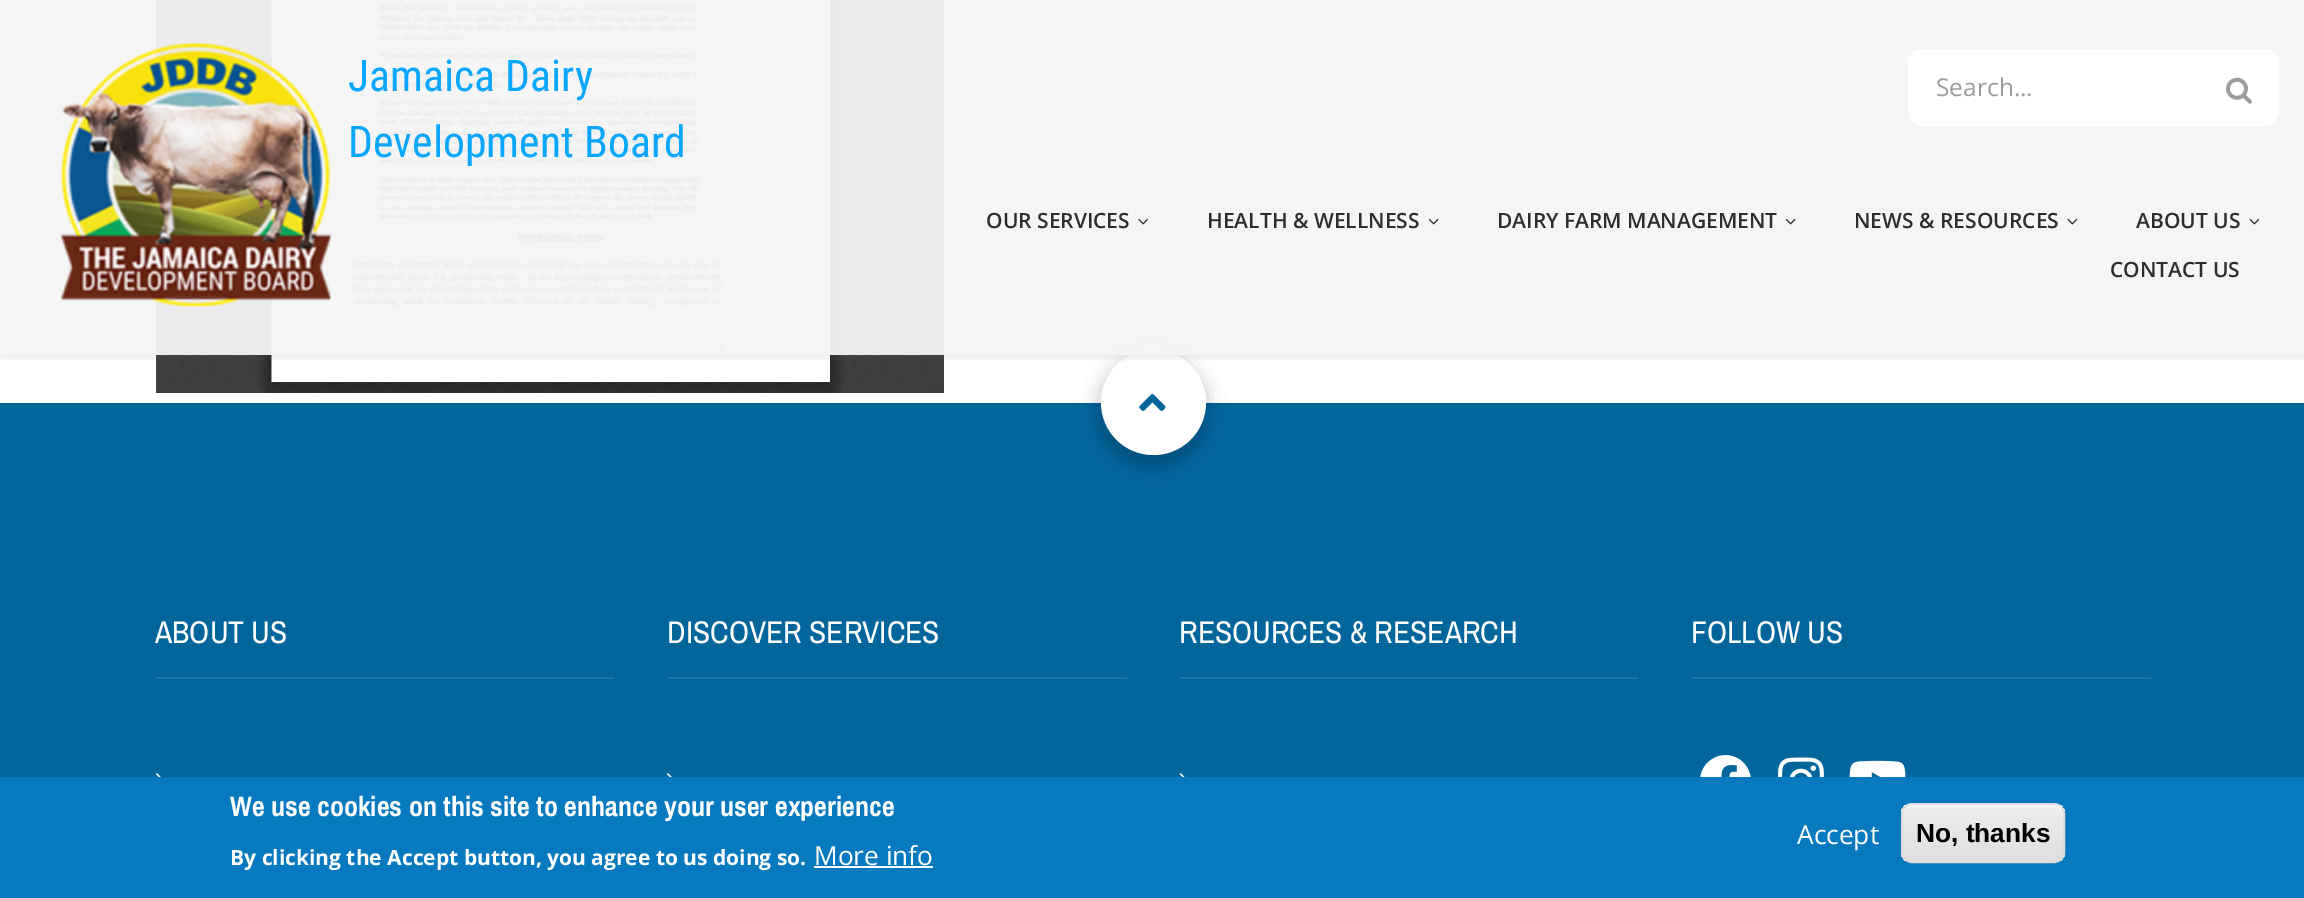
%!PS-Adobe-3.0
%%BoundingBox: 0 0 2304 898
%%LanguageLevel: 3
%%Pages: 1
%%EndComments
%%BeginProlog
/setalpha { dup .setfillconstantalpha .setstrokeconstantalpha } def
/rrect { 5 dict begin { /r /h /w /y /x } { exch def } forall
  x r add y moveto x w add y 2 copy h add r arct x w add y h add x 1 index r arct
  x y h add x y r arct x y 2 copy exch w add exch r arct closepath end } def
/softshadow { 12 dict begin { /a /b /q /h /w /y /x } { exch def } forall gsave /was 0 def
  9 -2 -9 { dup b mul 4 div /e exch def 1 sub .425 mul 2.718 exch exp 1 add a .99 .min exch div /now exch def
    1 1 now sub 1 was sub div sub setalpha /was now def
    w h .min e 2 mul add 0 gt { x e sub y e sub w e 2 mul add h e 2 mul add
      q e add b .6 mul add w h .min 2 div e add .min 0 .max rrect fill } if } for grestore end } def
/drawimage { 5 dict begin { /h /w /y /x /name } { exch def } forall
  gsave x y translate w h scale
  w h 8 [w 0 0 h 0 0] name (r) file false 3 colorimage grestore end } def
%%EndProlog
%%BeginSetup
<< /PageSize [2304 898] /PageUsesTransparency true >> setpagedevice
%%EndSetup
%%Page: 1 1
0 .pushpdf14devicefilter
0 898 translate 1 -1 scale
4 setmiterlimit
1 setgray
0 0 2304 898 rectfill
(images/1.raw) 156 0 788 393 drawimage
0.008 0.4 0.616 setrgbcolor
0 403 2304 374 rectfill
0 setgray
1097 355 112 112 56 9 0.2 softshadow
1 setgray
newpath 1153.5 402.5 52.5 0 360 arc closepath fill
gsave
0 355 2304 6 rectclip
0.392 setgray
0 4 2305 355 0 2 0.1 softshadow
grestore
0.95 setalpha
0.957 setgray
0 0 2304 355 rectfill
1 setalpha
(images/2.raw) 61 43 271 264 drawimage
1 setgray
1909 50 369 75 13 rrect gsave fill grestore
2 setlinewidth
stroke
(images/3.raw) 2226 77 26 27 drawimage
(images/4.raw) 1138 218 10 7 drawimage
(images/5.raw) 1428 218 11 7 drawimage
(images/5.raw) 1785 218 11 7 drawimage
(images/6.raw) 2067 218 11 7 drawimage
(images/6.raw) 2249 218 11 7 drawimage
(images/7.raw) 1139 394 27 17 drawimage
0.106 0.459 0.655 setrgbcolor
156 677 458 2 rectfill
(images/8.raw) 156 773 5 4 drawimage
667 677 460 2 rectfill
(images/8.raw) 667 773 5 4 drawimage
1180 677 458 2 rectfill
(images/9.raw) 1179 773 6 4 drawimage
1691 677 460 2 rectfill
(images/10.raw) 1700 755 51 22 drawimage
(images/11.raw) 1778 757 46 20 drawimage
(images/12.raw) 1849 760 57 17 drawimage
0.027 0.475 0.749 setrgbcolor
0 777 2304 121 rectfill
1 setgray
814 866 119 2 rectfill
gsave
1901 803 164 60 11 rrect clip newpath
gsave newpath 1901 805 moveto 2065 805 lineto 2065 861 lineto 1901 861 lineto closepath clip newpath
<< /ShadingType 2 /ColorSpace /DeviceRGB /Coords [1983 805 1983 861] /Extend [true true] /Function << /FunctionType 3 /Domain [0 1] /Functions [<< /FunctionType 2 /Domain [0 1] /C0 [0.929 0.929 0.929] /C1 [0.929 0.929 0.929] /N 1 >> << /FunctionType 2 /Domain [0 1] /C0 [0.929 0.929 0.929] /C1 [0.875 0.875 0.875] /N 1 >>] /Bounds [0.05] /Encode [0 1 0 1] >> >> shfill grestore
grestore
newpath 1911 807 moveto 2054 807 lineto 2059 807 2063 811 2063 816 curveto 2063 814 lineto 2063 809 2059 805 2054 805 curveto 1911 805 lineto 1906 805 1902 809 1902 814 curveto 1902 816 lineto 1902 811 1906 807 1911 807 curveto closepath fill
0.863 setgray
1902 804 162 58 10 rrect stroke
/RobotoCondensed-Regular [43.75 0 0 -43.75 0 0] selectfont
0.031 0.655 0.992 setrgbcolor
348 91 moveto (Jamaica Dairy) show
348 157 moveto (Development Board) show
/OpenSans-Regular [24.5 0 0 -24.5 0 0] selectfont
0.612 setgray
1936 96 moveto (Search...) show
/OpenSans-SemiBold [21 0 0 -21 0 0] selectfont
0.176 setgray
986 228 moveto (OUR SERVICES) show
1207 228 moveto (HEALTH & WELLNESS) show
1497 228 moveto (DAIRY FARM MANAGEMENT) show
1854 228 moveto (NEWS & RESOURCES) show
2136 228 moveto (ABOUT US) show
2110 277 moveto (CONTACT US) show
/ArchivoNarrow-Regular [31.5 0 0 -31.5 0 0] selectfont
1 setgray
155 643 moveto (ABOUT US) show
667 643 moveto (DISCOVER SERVICES) show
1179 643 moveto (RESOURCES & RESEARCH) show
1691 643 moveto (FOLLOW US) show
/ArchivoNarrow-Bold [28 0 0 -28 0 0] selectfont
230 816 moveto (We use cookies on this site to enhance your user experience) show
/OpenSans-Bold [21 0 0 -21 0 0] selectfont
230 865 moveto (By clicking the Accept button, you agree to us doing so.) show
/OpenSans-Regular [26.25 0 0 -26.25 0 0] selectfont
814 865 moveto (More info) show
1797 844 moveto (Accept) show
/LiberationSans-Bold [26.25 0 0 -26.25 0 0] selectfont
0 setgray
1916 842 moveto (No, thanks) show
.poppdf14devicefilter showpage
%%EOF
